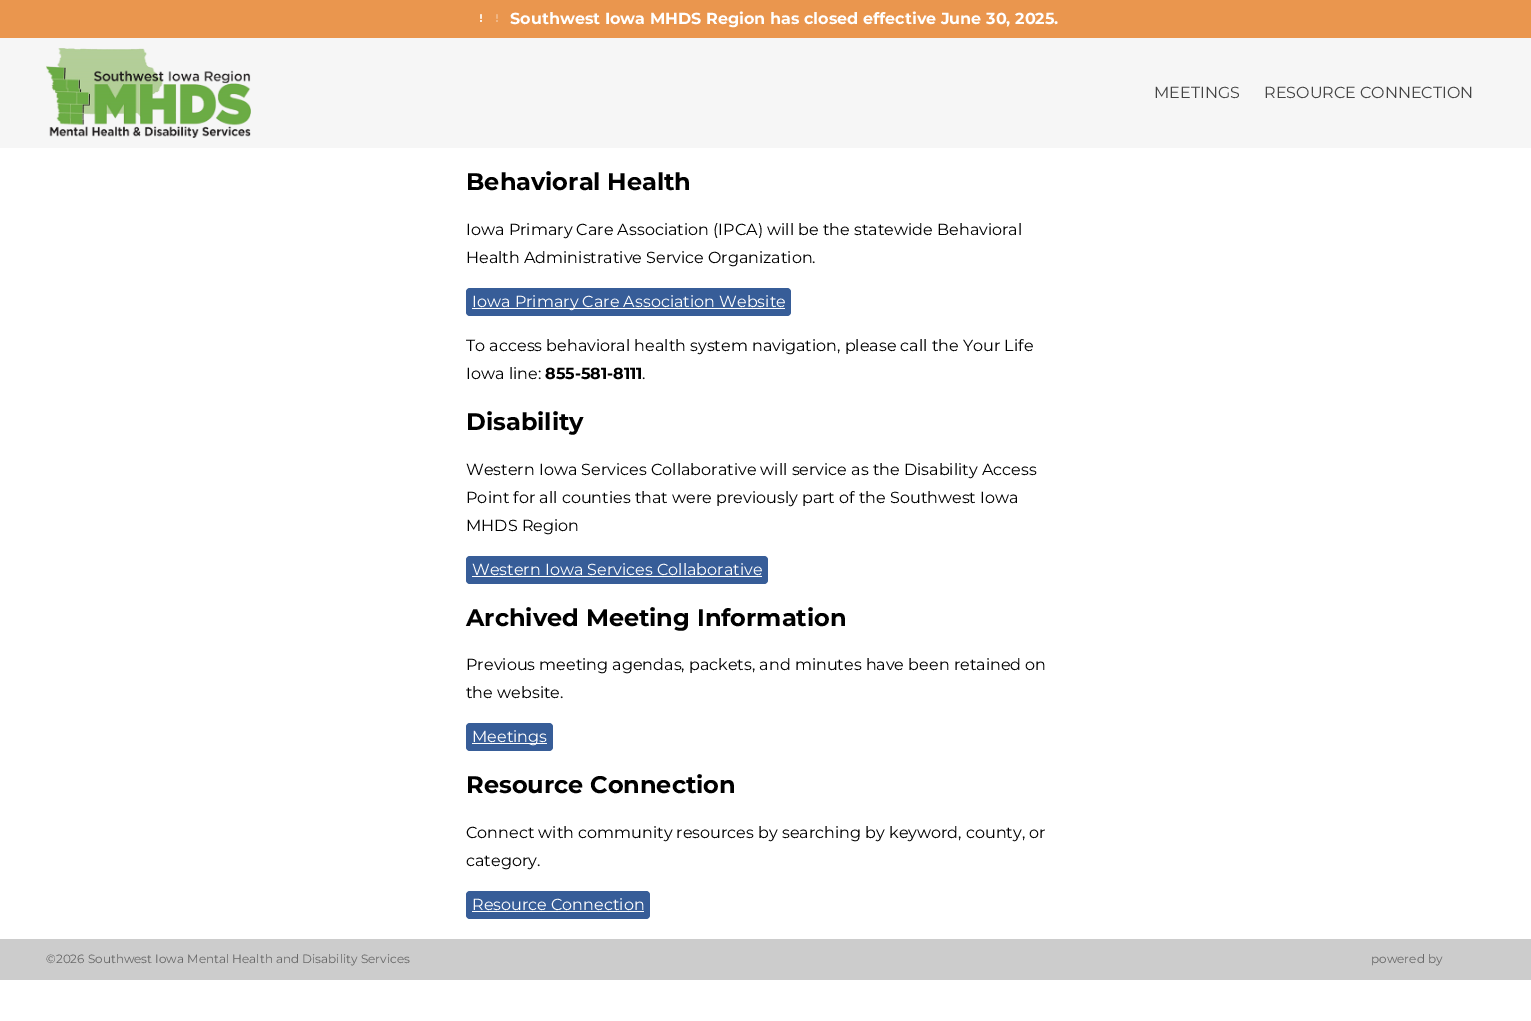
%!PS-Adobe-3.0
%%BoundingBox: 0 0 1531 1021
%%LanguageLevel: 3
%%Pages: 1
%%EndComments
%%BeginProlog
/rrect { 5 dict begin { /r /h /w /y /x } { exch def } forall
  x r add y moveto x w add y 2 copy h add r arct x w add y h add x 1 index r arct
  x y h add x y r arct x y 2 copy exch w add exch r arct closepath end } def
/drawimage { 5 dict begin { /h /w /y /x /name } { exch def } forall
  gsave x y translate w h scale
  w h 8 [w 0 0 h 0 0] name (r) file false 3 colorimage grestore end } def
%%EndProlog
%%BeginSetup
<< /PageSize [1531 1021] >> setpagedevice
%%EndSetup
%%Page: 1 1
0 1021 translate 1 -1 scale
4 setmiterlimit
1 setgray
0 0 1531 1021 rectfill
0.918 0.588 0.306 setrgbcolor
0 0 1531 38 rectfill
(images/1.raw) 480 14 2 8 drawimage
(images/2.raw) 480 14 18 8 drawimage
0.965 setgray
0 38 1531 110 rectfill
(images/3.raw) 46 48 205 90 drawimage
0.216 0.365 0.596 setrgbcolor
466 288 325 28 4 rrect fill
1 setgray
472 308 313 1 rectfill
0.216 0.365 0.596 setrgbcolor
466 556 302 28 4 rrect fill
1 setgray
472 576 290 1 rectfill
0.216 0.365 0.596 setrgbcolor
466 723 87 28 4 rrect fill
1 setgray
472 743 75 1 rectfill
0.216 0.365 0.596 setrgbcolor
466 891 184 28 4 rrect fill
1 setgray
472 911 172 1 rectfill
0.8 setgray
0 939 1531 41 rectfill
/Montserrat-Bold [16 0 0 -16 0 0] selectfont
1 setgray
510 24 moveto (Southwest Iowa MHDS Region has closed effective June 30, 2025.) show
/Montserrat-Regular [16 0 0 -16 0 0] selectfont
0.267 setgray
1154 98 moveto (MEETINGS) show
1264 98 moveto (RESOURCE CONNECTION) show
/Montserrat-Bold [24 0 0 -24 0 0] selectfont
0 setgray
466 190 moveto (Behavioral Health) show
/Montserrat-Regular [16 0 0 -16 0 0] selectfont
466 235 moveto (Iowa Primary Care Association \(IPCA\) will be the statewide Behavioral) show
466 263 moveto (Health Administrative Service Organization.) show
1 setgray
472 307 moveto (Iowa Primary Care Association Website) show
0 setgray
466 351 moveto (To access behavioral health system navigation, please call the Your Life) show
466 379 moveto (Iowa line:) show
/Montserrat-Bold [16 0 0 -16 0 0] selectfont
545 379 moveto (855-581-8111) show
/Montserrat-Regular [16 0 0 -16 0 0] selectfont
642 379 moveto (.) show
/Montserrat-Bold [24 0 0 -24 0 0] selectfont
466 430 moveto (Disability) show
/Montserrat-Regular [16 0 0 -16 0 0] selectfont
466 475 moveto (Western Iowa Services Collaborative will service as the Disability Access) show
466 503 moveto (Point for all counties that were previously part of the Southwest Iowa) show
466 531 moveto (MHDS Region) show
1 setgray
472 575 moveto (Western Iowa Services Collaborative) show
/Montserrat-Bold [24 0 0 -24 0 0] selectfont
0 setgray
466 626 moveto (Archived Meeting Information) show
/Montserrat-Regular [16 0 0 -16 0 0] selectfont
466 670 moveto (Previous meeting agendas, packets, and minutes have been retained on) show
466 698 moveto (the website.) show
1 setgray
472 742 moveto (Meetings) show
/Montserrat-Bold [24 0 0 -24 0 0] selectfont
0 setgray
466 793 moveto (Resource Connection) show
/Montserrat-Regular [16 0 0 -16 0 0] selectfont
466 838 moveto (Connect with community resources by searching by keyword, county, or) show
466 866 moveto (category.) show
1 setgray
472 910 moveto (Resource Connection) show
/Montserrat-Regular [12 0 0 -12 0 0] selectfont
0.4 setgray
46 963 moveto (©2026 Southwest Iowa Mental Health and Disability Services) show
1371 963 moveto (powered by) show
showpage
%%EOF
